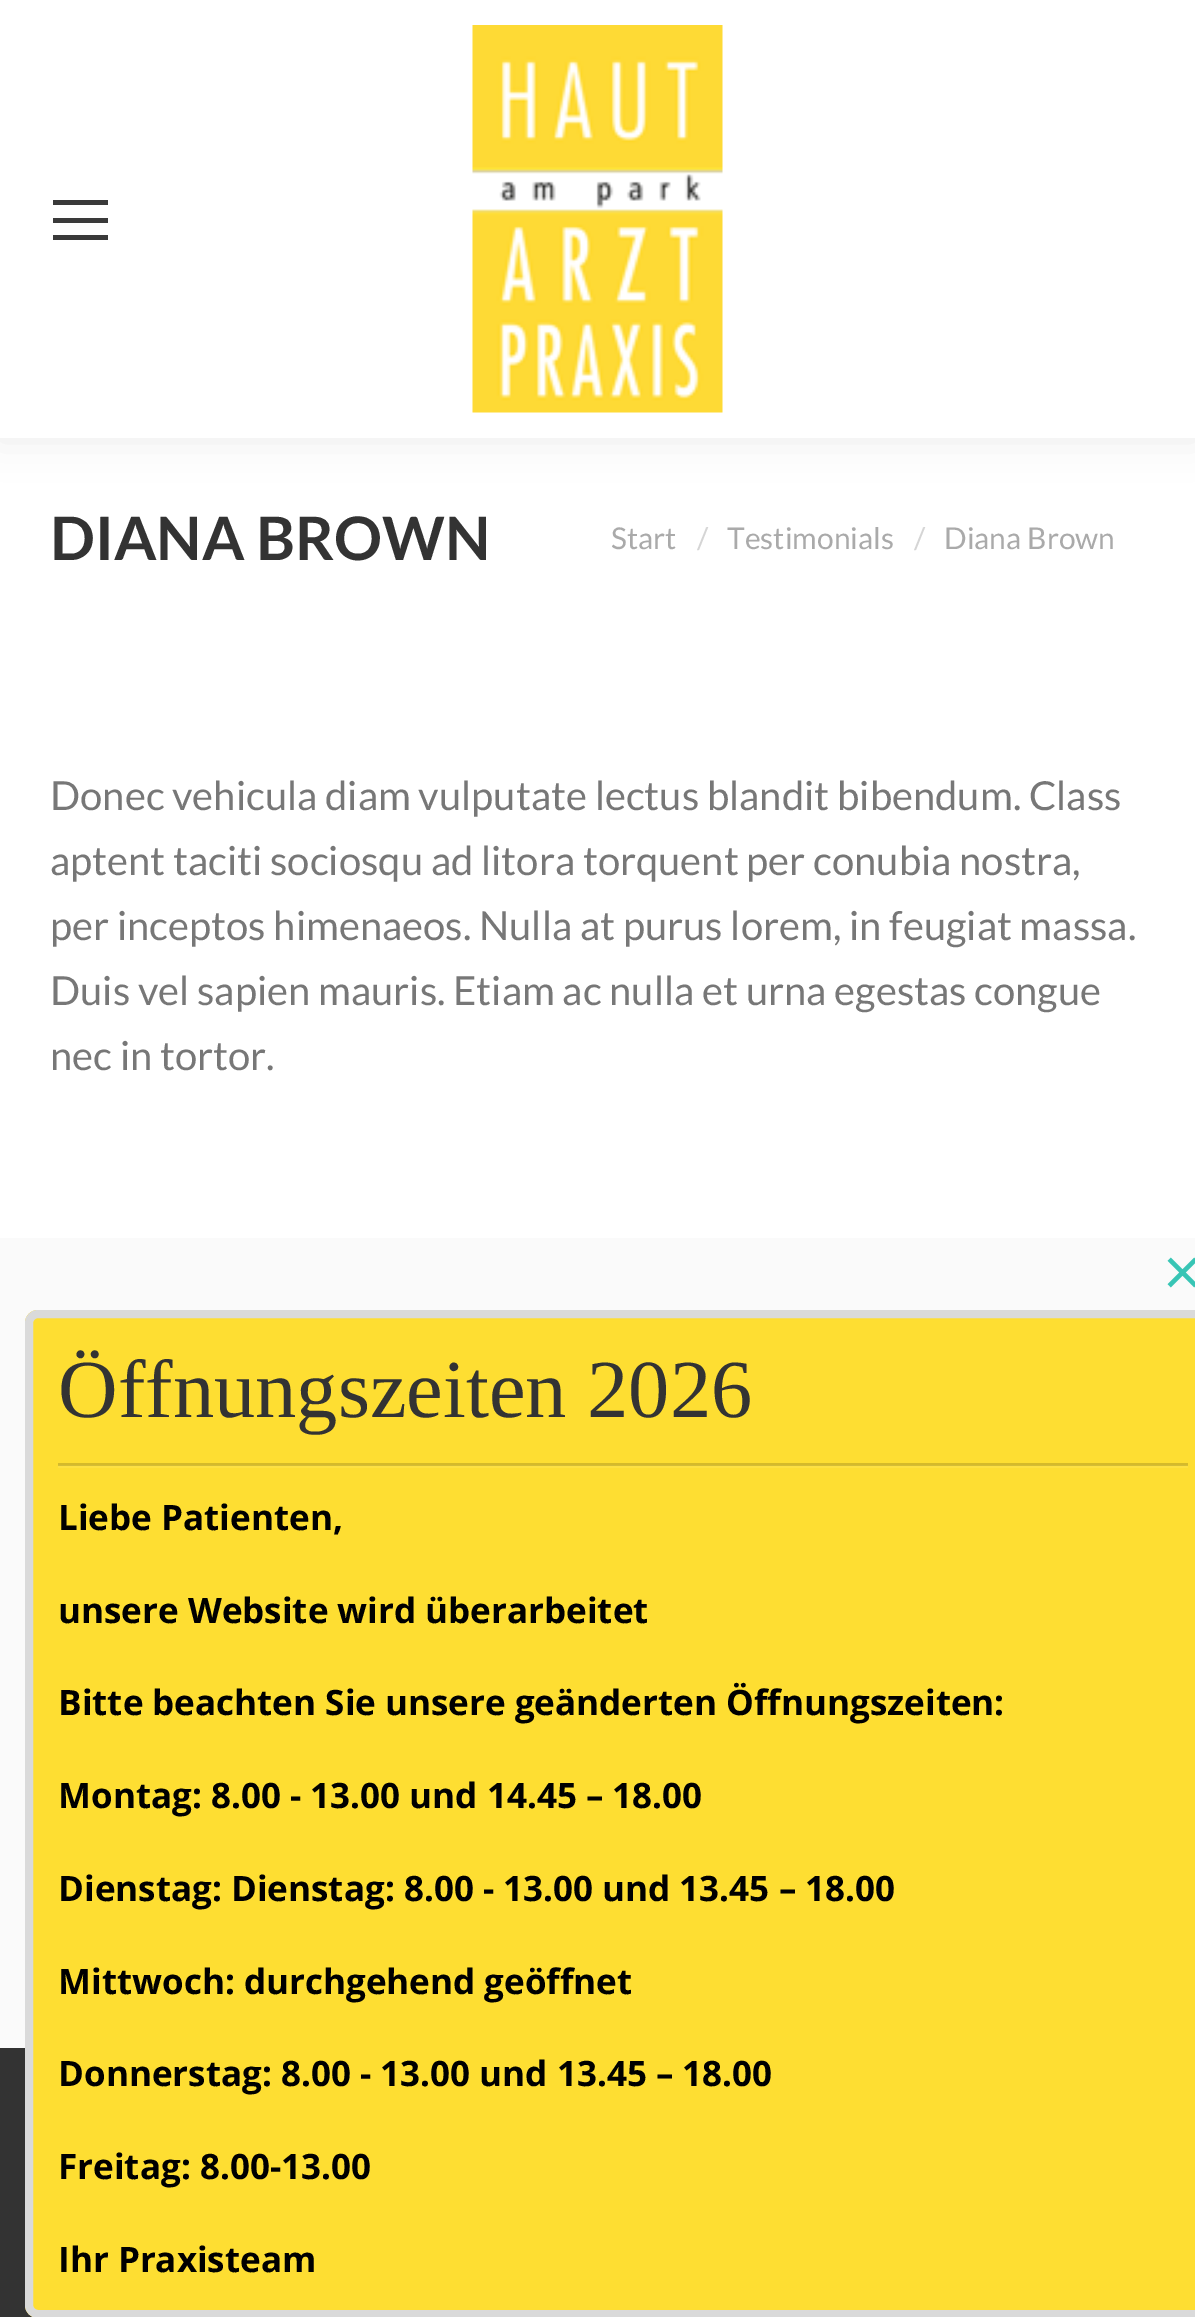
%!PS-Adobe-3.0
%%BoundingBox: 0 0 1195 2317
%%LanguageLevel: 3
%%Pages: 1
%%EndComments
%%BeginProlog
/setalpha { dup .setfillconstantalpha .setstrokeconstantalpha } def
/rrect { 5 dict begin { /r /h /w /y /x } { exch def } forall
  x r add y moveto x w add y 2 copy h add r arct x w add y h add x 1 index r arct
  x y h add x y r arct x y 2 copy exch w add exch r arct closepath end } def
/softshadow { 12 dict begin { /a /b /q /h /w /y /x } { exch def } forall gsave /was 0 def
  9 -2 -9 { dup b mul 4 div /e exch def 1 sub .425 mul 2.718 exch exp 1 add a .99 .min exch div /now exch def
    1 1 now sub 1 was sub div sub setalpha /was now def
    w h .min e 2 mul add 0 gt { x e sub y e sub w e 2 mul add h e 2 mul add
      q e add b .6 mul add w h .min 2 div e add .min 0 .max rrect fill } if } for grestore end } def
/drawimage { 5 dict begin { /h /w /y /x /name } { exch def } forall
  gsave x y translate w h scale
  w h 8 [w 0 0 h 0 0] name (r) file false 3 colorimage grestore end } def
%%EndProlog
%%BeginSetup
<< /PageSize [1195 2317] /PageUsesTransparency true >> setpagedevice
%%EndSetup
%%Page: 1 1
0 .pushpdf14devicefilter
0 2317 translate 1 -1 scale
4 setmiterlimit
1 setgray
0 0 1195 2317 rectfill
0 setgray
-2 -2 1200 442 0 19 0.07 softshadow
1 setgray
0 0 1195 438 rectfill
0.227 setgray
53 218 55 5 rectfill
53 200 55 5 rectfill
53 235 55 5 rectfill
(images/1.raw) 472 25 251 388 drawimage
0.98 setgray
0 1238 1195 810 rectfill
0.2 setgray
0 2048 33 269 rectfill
(images/2.raw) 1167 1257 28 31 drawimage
0.996 0.871 0.196 setrgbcolor
25 1310 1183 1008 13 rrect fill
0.835 0.729 0.165 setrgbcolor
58 1463 1130 2 rectfill
0.855 setgray
8 setlinewidth
29 1314 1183 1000 9 rrect stroke
0.996 0.882 0.259 setrgbcolor
58 1466 1130 2 rectfill
0.835 0.741 0.216 setrgbcolor
58 1465 1130 1 rectfill
/Lato-Bold [60 0 0 -60 0 0] selectfont
0.2 setgray
50 560 moveto (DIANA BROWN) show
/Lato-Regular [30 0 0 -30 0 0] selectfont
0.667 setgray
611 549 moveto (Start) show
0.835 setgray
697 549 moveto (/) show
0.667 setgray
727 549 moveto (Testimonials) show
0.835 setgray
914 549 moveto (/) show
0.667 setgray
944 549 moveto (Diana Brown) show
/Lato-Regular [40 0 0 -40 0 0] selectfont
0.467 setgray
50 810 moveto (Donec vehicula diam vulputate lectus blandit bibendum. Class) show
50 875 moveto (aptent taciti sociosqu ad litora torquent per conubia nostra,) show
50 940 moveto (per inceptos himenaeos. Nulla at purus lorem, in feugiat massa.) show
50 1005 moveto (Duis vel sapien mauris. Etiam ac nulla et urna egestas congue) show
50 1070 moveto (nec in tortor.) show
/LiberationSerif-Regular [82.5 0 0 -82.5 0 0] selectfont
0.2 setgray
58 1417 moveto (Öffnungszeiten 2026) show
/OpenSans-Bold [35 0 0 -35 0 0] selectfont
0 setgray
58 1530 moveto (Liebe Patienten,) show
58 1623 moveto (unsere Website wird überarbeitet) show
58 1715 moveto (Bitte beachten Sie unsere geänderten Öffnungszeiten:) show
58 1808 moveto (Montag: 8.00 - 13.00 und 14.45 – 18.00) show
58 1901 moveto (Dienstag: Dienstag: 8.00 - 13.00 und 13.45 – 18.00) show
58 1994 moveto (Mittwoch: durchgehend geöffnet) show
58 2086 moveto (Donnerstag: 8.00 - 13.00 und 13.45 – 18.00) show
58 2179 moveto (Freitag: 8.00-13.00) show
58 2272 moveto (Ihr Praxisteam) show
.poppdf14devicefilter showpage
%%EOF
